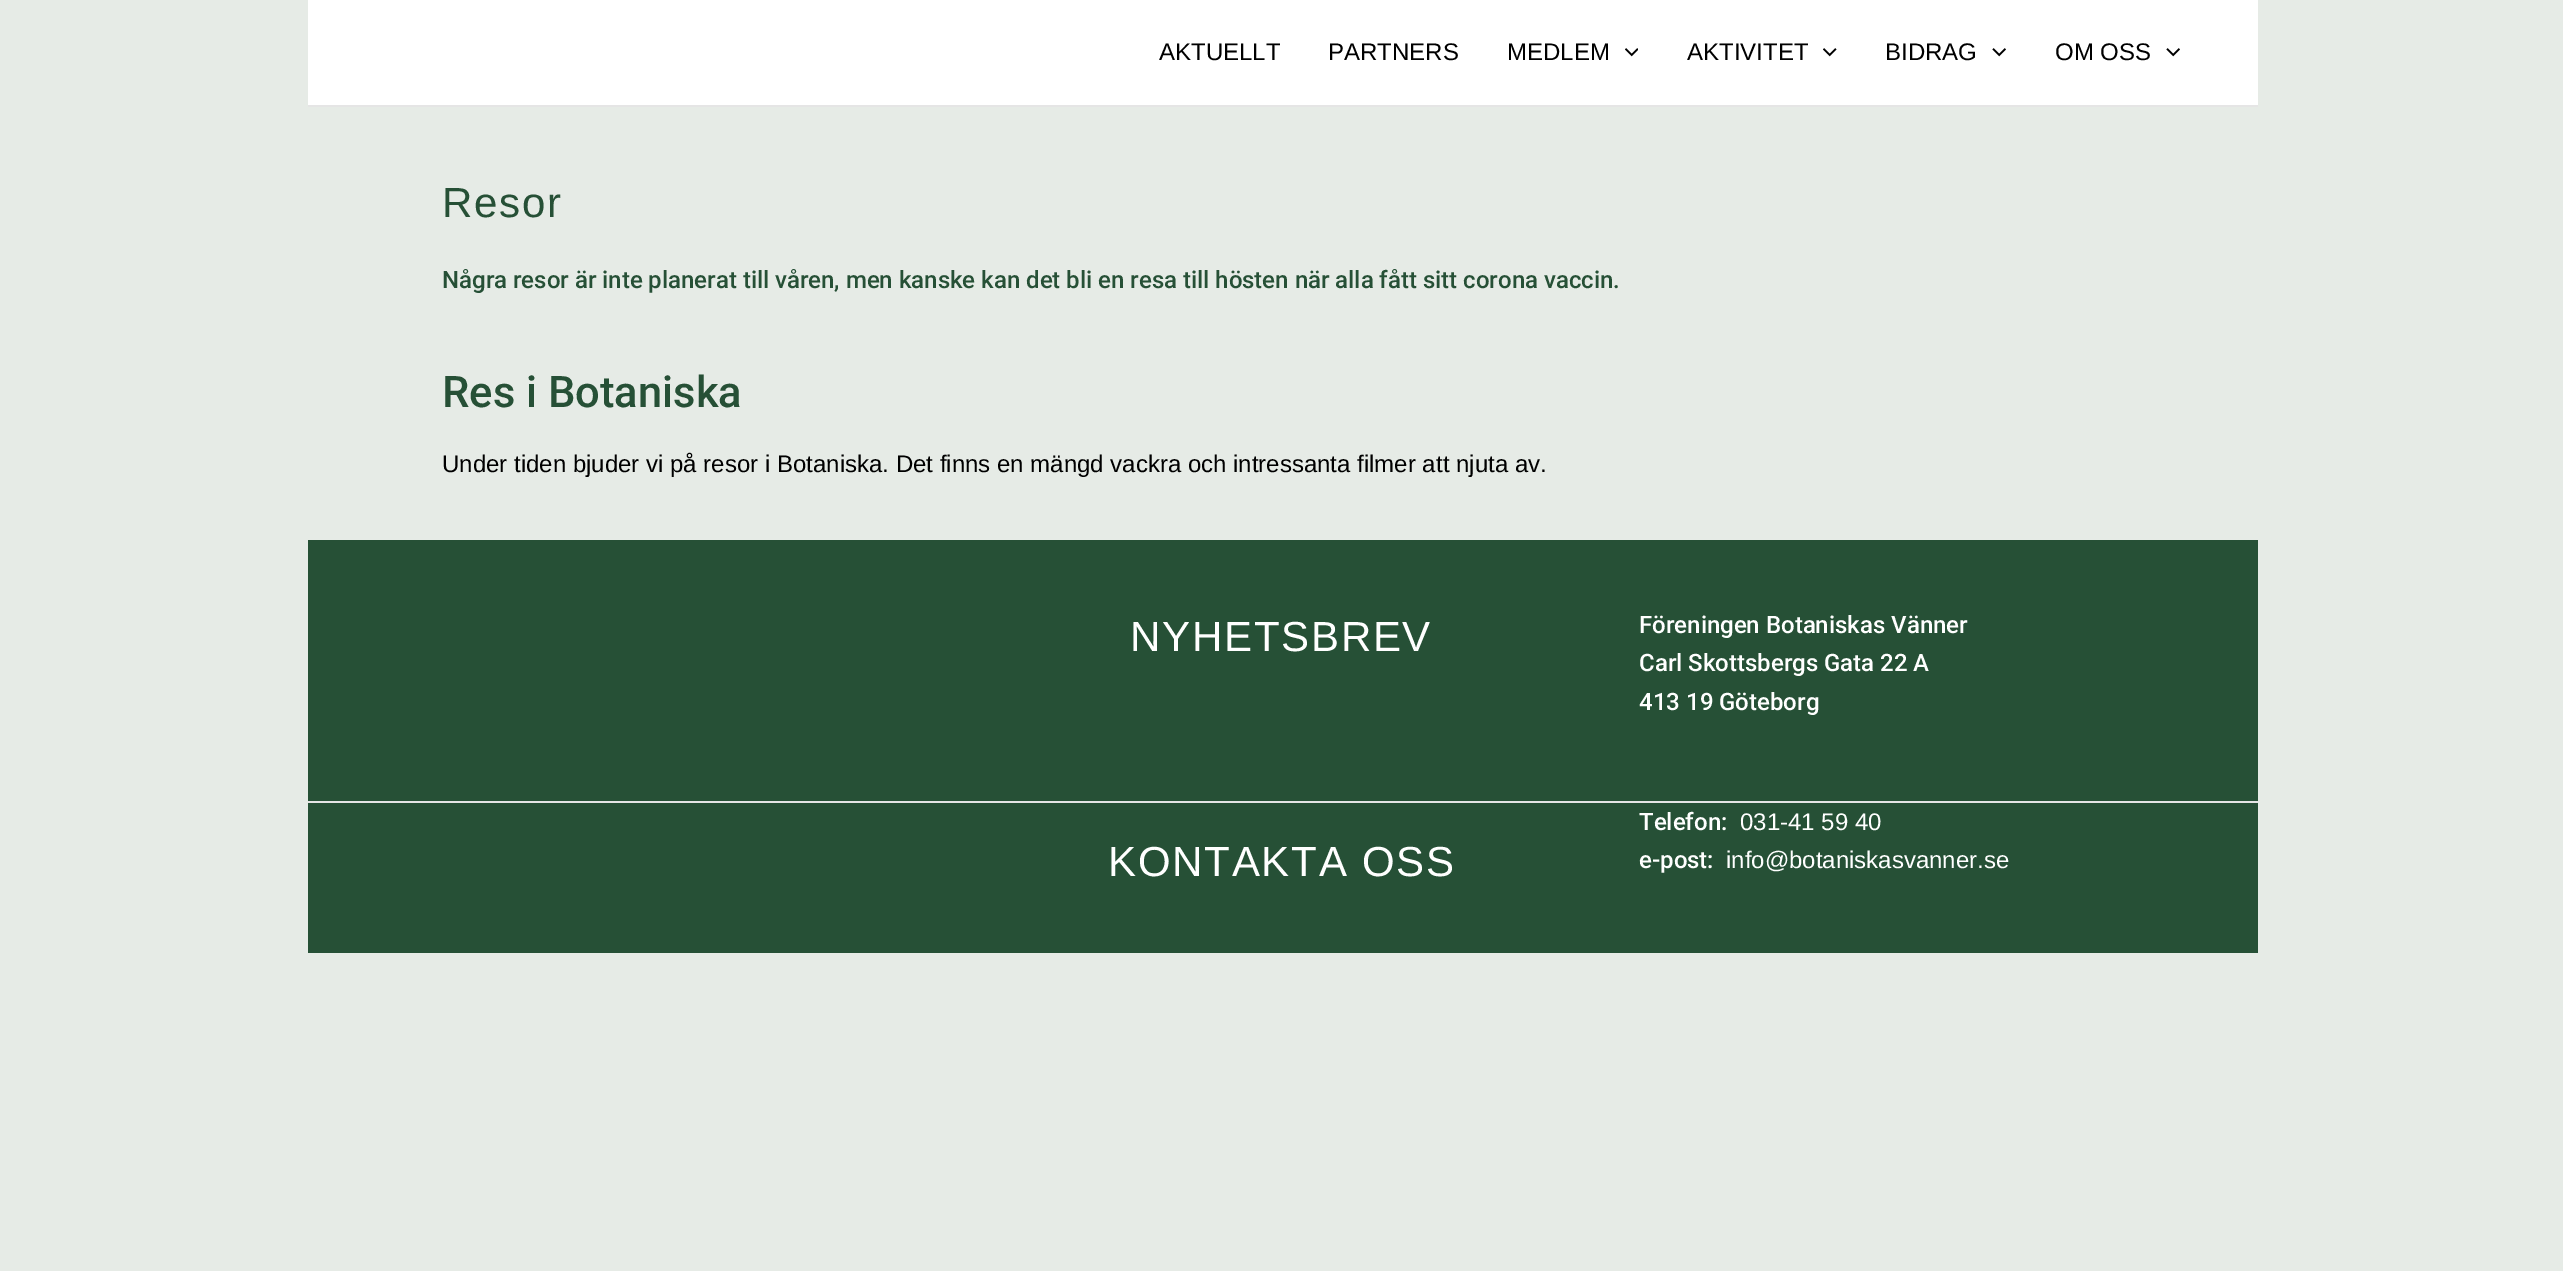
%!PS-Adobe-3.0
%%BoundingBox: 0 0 2563 1271
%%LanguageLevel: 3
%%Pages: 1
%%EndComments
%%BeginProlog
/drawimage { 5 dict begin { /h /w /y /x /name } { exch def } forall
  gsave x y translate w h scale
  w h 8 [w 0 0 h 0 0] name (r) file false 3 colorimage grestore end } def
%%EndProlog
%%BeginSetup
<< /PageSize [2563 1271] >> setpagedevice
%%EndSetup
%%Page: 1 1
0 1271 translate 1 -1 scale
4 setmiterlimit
0.902 0.922 0.902 setrgbcolor
0 0 2563 1271 rectfill
1 setgray
308 0 1950 105 rectfill
0.898 setgray
308 105 1950 2 rectfill
(images/1.raw) 1625 48 13 9 drawimage
(images/2.raw) 1823 48 14 9 drawimage
(images/3.raw) 1992 48 14 9 drawimage
(images/3.raw) 2166 48 14 9 drawimage
0.149 0.314 0.212 setrgbcolor
308 540 1950 261 rectfill
308 803 1950 150 rectfill
0.898 setgray
308 801 1950 2 rectfill
/LiberationSans-Regular [24 0 0 -24 0 0] selectfont
0 setgray
1159 60 moveto (AKTUELLT) show
1328 60 moveto (PARTNERS) show
1507 60 moveto (MEDLEM) show
1687 60 moveto (AKTIVITET) show
1885 60 moveto (BIDRAG) show
2055 60 moveto (OM OSS) show
/LiberationSans-Regular [42 0 0 -42 0 0] selectfont
0.149 0.314 0.212 setrgbcolor
442 217 moveto 1.75 0 (Resor) ashow
/Roboto-Medium [24 0 0 -24 0 0] selectfont
442 288 moveto (Några resor är inte planerat till våren, men kanske kan det bli en resa till hösten när alla fått sitt corona vaccin.) show
/Roboto-Medium [43.5 0 0 -43.5 0 0] selectfont
442 407 moveto (Res i Botaniska) show
/LiberationSans-Regular [24 0 0 -24 0 0] selectfont
0 setgray
442 472 moveto (Under tiden bjuder vi på resor i Botaniska. Det finns en mängd vackra och intressanta filmer att njuta av.) show
/LiberationSans-Regular [42 0 0 -42 0 0] selectfont
1 setgray
1130 651 moveto 1.75 0 (NYHETSBREV) ashow
/Roboto-Medium [24 0 0 -24 0 0] selectfont
1639 633 moveto (Föreningen Botaniskas Vänner) show
1639 671 moveto (Carl Skottsbergs Gata 22 A) show
1639 710 moveto (413 19 Göteborg) show
/LiberationSans-Regular [42 0 0 -42 0 0] selectfont
1108 876 moveto 1.75 0 (KONTAKTA OSS) ashow
/Roboto-Medium [24 0 0 -24 0 0] selectfont
1639 830 moveto (Telefon:) show
/LiberationSans-Regular [24 0 0 -24 0 0] selectfont
1740 830 moveto (031-41 59 40) show
/Roboto-Medium [24 0 0 -24 0 0] selectfont
1639 868 moveto (e-post:) show
/LiberationSans-Regular [24 0 0 -24 0 0] selectfont
1726 868 moveto (info@botaniskasvanner.se) show
showpage
%%EOF
